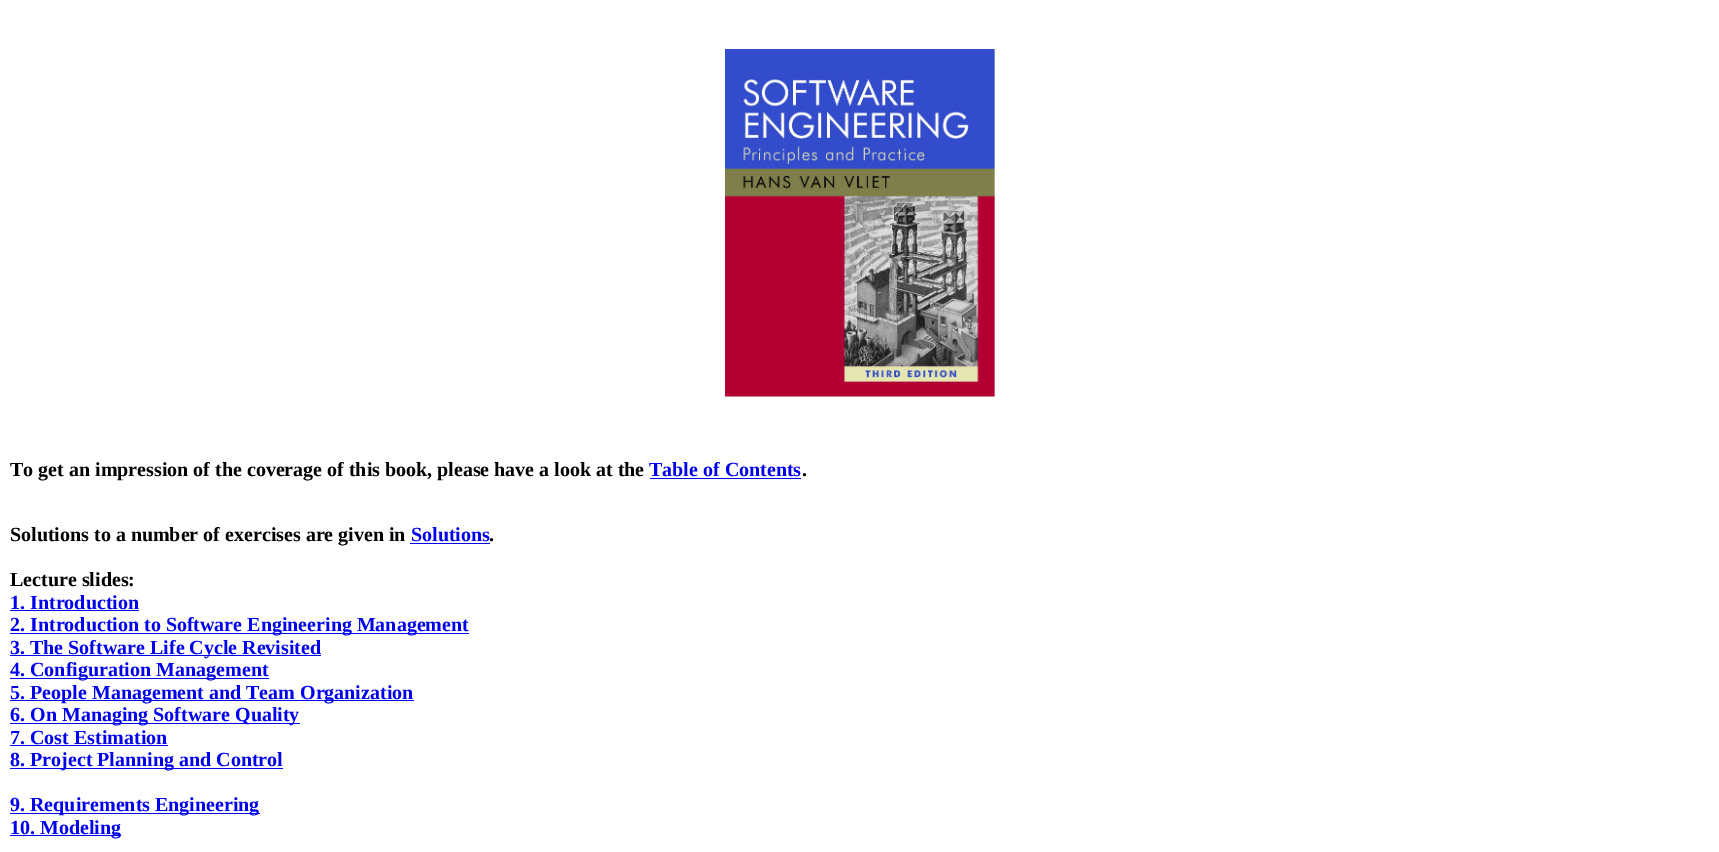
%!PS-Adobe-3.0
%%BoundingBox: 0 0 1719 852
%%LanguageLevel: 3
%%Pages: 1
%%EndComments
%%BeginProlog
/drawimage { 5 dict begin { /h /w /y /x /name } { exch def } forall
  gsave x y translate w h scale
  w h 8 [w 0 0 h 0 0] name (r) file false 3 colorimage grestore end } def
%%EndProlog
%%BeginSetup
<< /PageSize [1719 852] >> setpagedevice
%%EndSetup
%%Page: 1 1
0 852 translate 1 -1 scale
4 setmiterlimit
1 setgray
0 0 1719 852 rectfill
(images/1.raw) 725 49 270 348 drawimage
0 0 0.933 setrgbcolor
650 478 151 1 rectfill
410 543 80 1 rectfill
10 610 129 1 rectfill
10 633 459 1 rectfill
10 655 311 1 rectfill
10 678 259 1 rectfill
10 700 404 1 rectfill
10 723 290 1 rectfill
10 745 158 1 rectfill
10 768 273 1 rectfill
10 813 250 1 rectfill
10 835 111 1 rectfill
/LiberationSerif-Bold [20 0 0 -20 0 0] selectfont
0 setgray
10 476 moveto (To get an impression of the coverage of this book, please have a look at the) show
0 0 0.933 setrgbcolor
649 476 moveto (Table of Contents) show
0 setgray
802 476 moveto (.) show
10 541 moveto (Solutions to a number of exercises are given in) show
0 0 0.933 setrgbcolor
411 541 moveto (Solutions) show
0 setgray
489 541 moveto (.) show
10 586 moveto (Lecture slides:) show
0 0 0.933 setrgbcolor
10 609 moveto (1. Introduction) show
10 631 moveto (2. Introduction to Software Engineering Management) show
10 654 moveto (3. The Software Life Cycle Revisited) show
10 676 moveto (4. Configuration Management) show
10 699 moveto (5. People Management and Team Organization) show
10 721 moveto (6. On Managing Software Quality) show
10 744 moveto (7. Cost Estimation) show
10 766 moveto (8. Project Planning and Control) show
10 811 moveto (9. Requirements Engineering) show
10 834 moveto (10. Modeling) show
showpage
%%EOF
